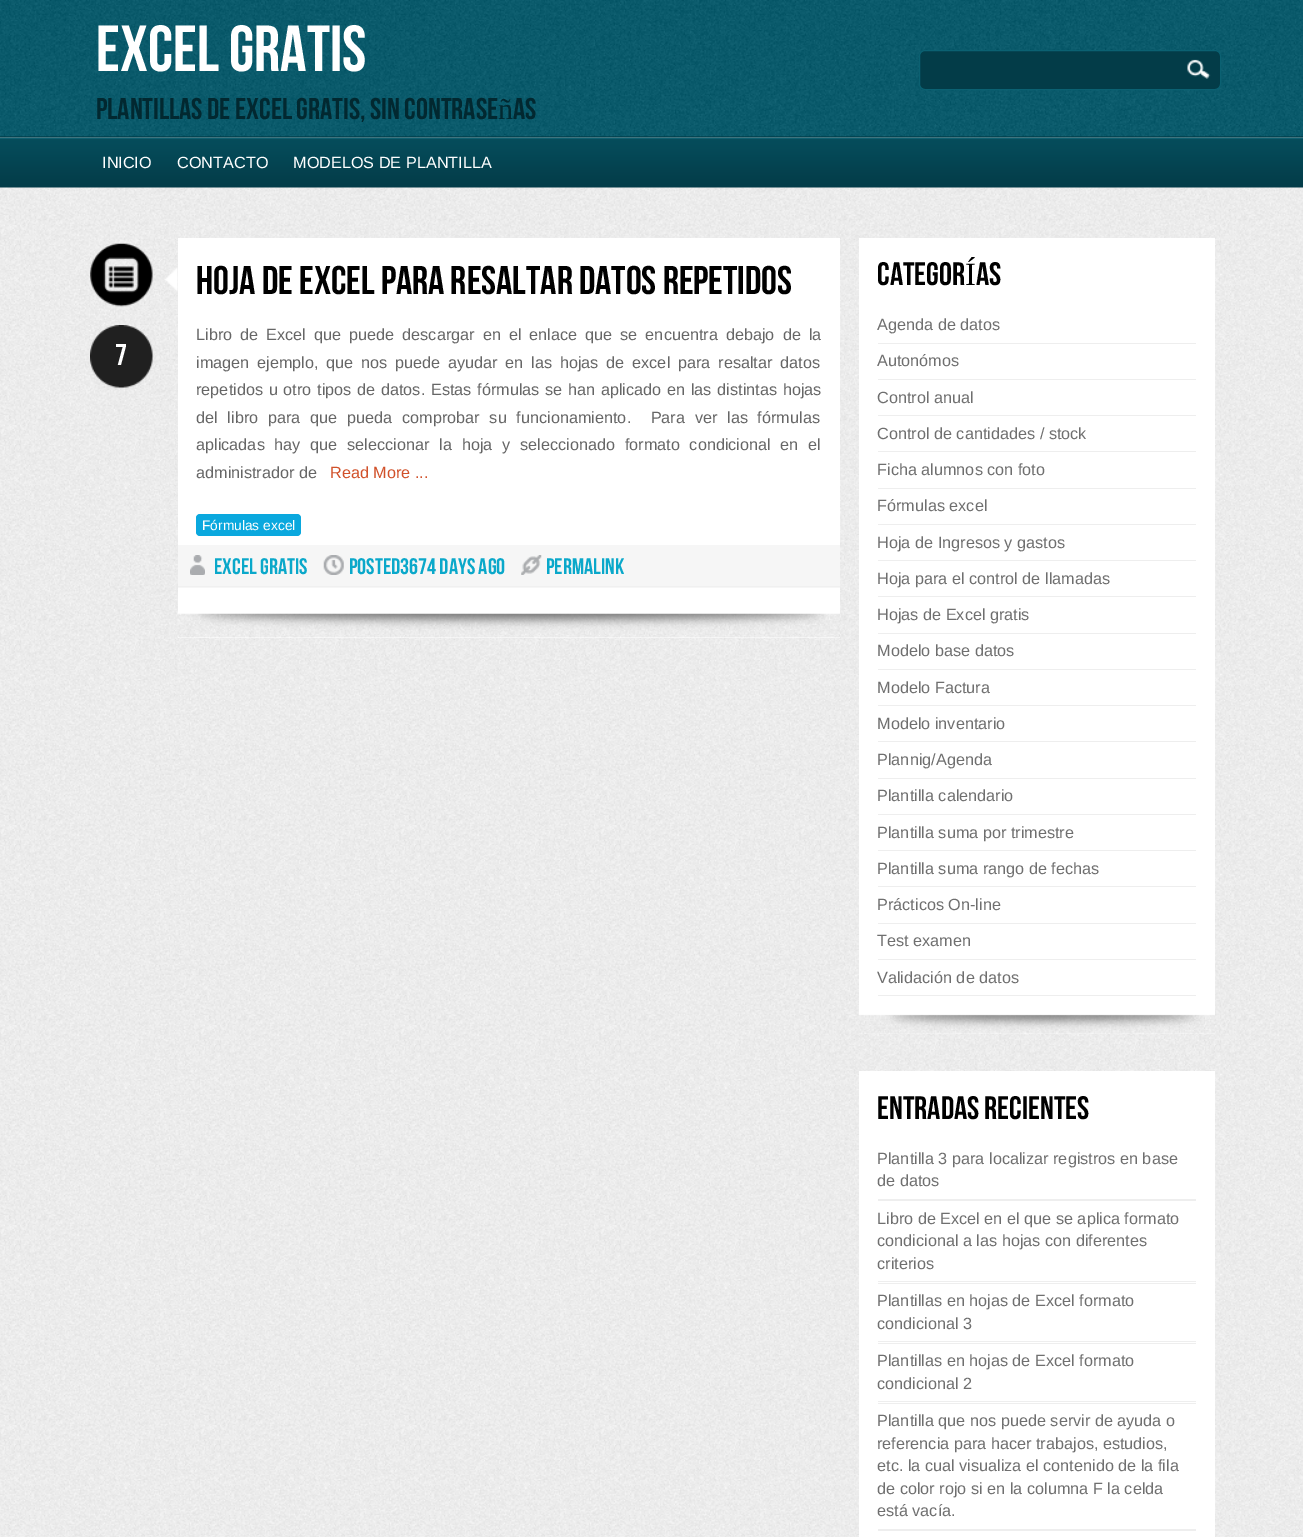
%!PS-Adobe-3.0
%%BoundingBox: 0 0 1303 1537
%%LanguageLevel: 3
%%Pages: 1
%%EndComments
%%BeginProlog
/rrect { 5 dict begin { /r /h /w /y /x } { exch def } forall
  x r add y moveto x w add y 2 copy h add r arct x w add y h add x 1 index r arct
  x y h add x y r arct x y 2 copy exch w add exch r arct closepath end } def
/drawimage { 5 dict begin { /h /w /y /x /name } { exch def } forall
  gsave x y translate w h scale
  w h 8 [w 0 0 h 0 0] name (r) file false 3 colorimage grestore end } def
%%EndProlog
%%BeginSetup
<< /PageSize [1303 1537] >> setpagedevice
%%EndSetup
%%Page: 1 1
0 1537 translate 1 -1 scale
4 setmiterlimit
1 setgray
0 0 1303 1537 rectfill
(images/1.raw) 0 137 1303 1400 drawimage
(images/4.raw) 0 137 1303 51 drawimage
(images/2.raw) 0 0 1303 138 drawimage
0.012 0.235 0.282 setrgbcolor
919.5 50.5 301 39 5.5 rrect gsave fill grestore
0.043 0.38 0.447 setrgbcolor
stroke
(images/3.raw) 1187 59 24 20 drawimage
1 setgray
178 238 662 400 rectfill
(images/5.raw) 177 612 663 26 drawimage
(images/6.raw) 90 243 63 64 drawimage
(images/7.raw) 165 262 13 33 drawimage
(images/8.raw) 90 325 63 63 drawimage
0.039 0.659 0.871 setrgbcolor
196 514 105 22 4 rrect fill
0.965 setgray
178 545 662 43 rectfill
0.941 setgray
178 586 662 1 rectfill
(images/9.raw) 190 555 15 20 drawimage
(images/10.raw) 323 555 21 20 drawimage
(images/11.raw) 521 555 21 20 drawimage
1 setgray
859 238 356 796 rectfill
(images/12.raw) 858 1014 357 20 drawimage
0.933 setgray
878 343 318 1 rectfill
878 379 318 1 rectfill
878 415 318 1 rectfill
878 451 318 1 rectfill
878 488 318 1 rectfill
878 524 318 1 rectfill
878 560 318 1 rectfill
878 596 318 1 rectfill
878 633 318 1 rectfill
878 669 318 1 rectfill
878 705 318 1 rectfill
878 741 318 1 rectfill
878 778 318 1 rectfill
878 814 318 1 rectfill
878 850 318 1 rectfill
878 886 318 1 rectfill
878 923 318 1 rectfill
878 959 318 1 rectfill
878 995 318 1 rectfill
1 setgray
859 1071 356 466 rectfill
0.933 setgray
878 1199 318 2 rectfill
878 1283 318 1 rectfill
878 1281 318 1 rectfill
878 1343 318 1 rectfill
878 1341 318 1 rectfill
878 1403 318 1 rectfill
878 1401 318 1 rectfill
878 1529 318 2 rectfill
/BebasNeue-Regular [65 0 0 -65 0 0] selectfont
1 setgray
96 71 moveto (Excel Gratis) show
/BebasNeue-Regular [30 0 0 -30 0 0] selectfont
0.008 0.157 0.188 setrgbcolor
96 119 moveto (Plantillas de Excel gratis, sin contrase) show
/LiberationSerif-Regular [30 0 0 -30 0 0] selectfont
498 119 moveto (ñ) show
/BebasNeue-Regular [30 0 0 -30 0 0] selectfont
513 119 moveto (as) show
/LiberationSans-Regular [16.25 0 0 -16.25 0 0] selectfont
1 setgray
102 168 moveto (INICIO) show
177 168 moveto (CONTACTO) show
293 168 moveto (MODELOS DE PLANTILLA) show
/BebasNeue-Regular [40 0 0 -40 0 0] selectfont
0 setgray
196 294 moveto (HOJA DE EXCEL PARA RESALTAR DATOS REPETIDOS) show
/BebasNeue-Regular [30 0 0 -30 0 0] selectfont
1 setgray
115 365 moveto (7) show
/LiberationSans-Regular [16.25 0 0 -16.25 0 0] selectfont
0.4 setgray
196 340 moveto 3.5 0 32 (Libro de Excel que puede descargar en el enlace que se encuentra debajo de la) widthshow
196 368 moveto 3.25 0 32 (imagen ejemplo, que nos puede ayudar en las hojas de excel para resaltar datos) widthshow
196 395 moveto 1.2 0 32 (repetidos u otro tipos de datos. Estas fórmulas se han aplicado en las distintas hojas) widthshow
196 423 moveto 5.25 0 32 (del libro para que pueda comprobar su funcionamiento.  Para ver las fórmulas) widthshow
196 450 moveto 5.25 0 32 (aplicadas hay que seleccionar la hoja y seleccionado formato condicional en el) widthshow
196 478 moveto (administrador de) show
0.82 0.318 0.165 setrgbcolor
330 478 moveto (Read More ...) show
/LiberationSans-Regular [13.75 0 0 -13.75 0 0] selectfont
1 setgray
202 530 moveto (Fórmulas excel) show
/BebasNeue-Regular [22.5 0 0 -22.5 0 0] selectfont
0.039 0.659 0.792 setrgbcolor
214 574 moveto (EXCEL GRATIS) show
349 574 moveto (POSTED3674 DAYS AGO) show
546 574 moveto (PERMALINK) show
/BebasNeue-Regular [32.5 0 0 -32.5 0 0] selectfont
0 setgray
877 285 moveto (CATEGOR) show
/LiberationSerif-Regular [32.5 0 0 -32.5 0 0] selectfont
965 285 moveto (Í) show
/BebasNeue-Regular [32.5 0 0 -32.5 0 0] selectfont
976 285 moveto (AS) show
/LiberationSans-Regular [16.25 0 0 -16.25 0 0] selectfont
0.435 setgray
877 330 moveto (Agenda de datos) show
877 366 moveto (Autonómos) show
877 403 moveto (Control anual) show
877 439 moveto (Control de cantidades / stock) show
877 475 moveto (Ficha alumnos con foto) show
877 511 moveto (Fórmulas excel) show
877 548 moveto (Hoja de Ingresos y gastos) show
877 584 moveto (Hoja para el control de llamadas) show
877 620 moveto (Hojas de Excel gratis) show
877 656 moveto (Modelo base datos) show
877 693 moveto (Modelo Factura) show
877 729 moveto (Modelo inventario) show
877 765 moveto (Plannig/Agenda) show
877 801 moveto (Plantilla calendario) show
877 838 moveto (Plantilla suma por trimestre) show
877 874 moveto (Plantilla suma rango de fechas) show
877 910 moveto (Prácticos On-line) show
877 946 moveto (Test examen) show
877 983 moveto (Validación de datos) show
/BebasNeue-Regular [32.5 0 0 -32.5 0 0] selectfont
0 setgray
877 1119 moveto (ENTRADAS RECIENTES) show
/LiberationSans-Regular [16.25 0 0 -16.25 0 0] selectfont
0.435 setgray
877 1164 moveto (Plantilla 3 para localizar registros en base) show
877 1186 moveto (de datos) show
877 1224 moveto (Libro de Excel en el que se aplica formato) show
877 1246 moveto (condicional a las hojas con diferentes) show
877 1269 moveto (criterios) show
877 1306 moveto (Plantillas en hojas de Excel formato) show
877 1329 moveto (condicional 3) show
877 1366 moveto (Plantillas en hojas de Excel formato) show
877 1389 moveto (condicional 2) show
877 1426 moveto (Plantilla que nos puede servir de ayuda o) show
877 1449 moveto (referencia para hacer trabajos, estudios,) show
877 1471 moveto (etc. la cual visualiza el contenido de la fila) show
877 1494 moveto (de color rojo si en la columna F la celda) show
877 1516 moveto (está vacía.) show
showpage
%%EOF
